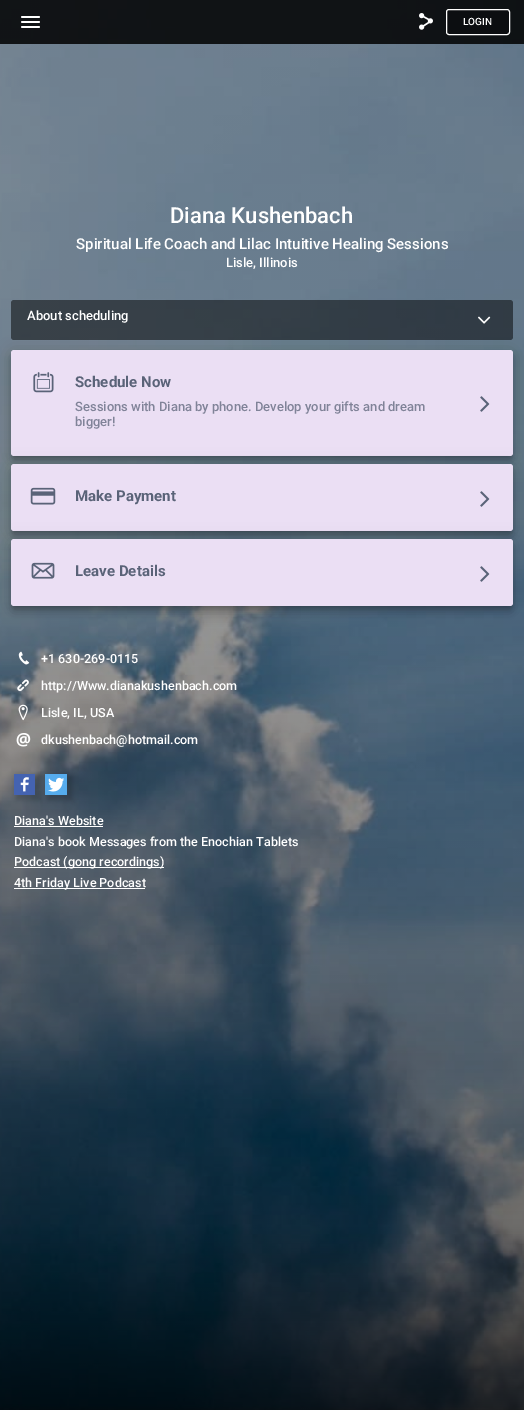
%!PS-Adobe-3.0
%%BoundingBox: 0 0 524 1410
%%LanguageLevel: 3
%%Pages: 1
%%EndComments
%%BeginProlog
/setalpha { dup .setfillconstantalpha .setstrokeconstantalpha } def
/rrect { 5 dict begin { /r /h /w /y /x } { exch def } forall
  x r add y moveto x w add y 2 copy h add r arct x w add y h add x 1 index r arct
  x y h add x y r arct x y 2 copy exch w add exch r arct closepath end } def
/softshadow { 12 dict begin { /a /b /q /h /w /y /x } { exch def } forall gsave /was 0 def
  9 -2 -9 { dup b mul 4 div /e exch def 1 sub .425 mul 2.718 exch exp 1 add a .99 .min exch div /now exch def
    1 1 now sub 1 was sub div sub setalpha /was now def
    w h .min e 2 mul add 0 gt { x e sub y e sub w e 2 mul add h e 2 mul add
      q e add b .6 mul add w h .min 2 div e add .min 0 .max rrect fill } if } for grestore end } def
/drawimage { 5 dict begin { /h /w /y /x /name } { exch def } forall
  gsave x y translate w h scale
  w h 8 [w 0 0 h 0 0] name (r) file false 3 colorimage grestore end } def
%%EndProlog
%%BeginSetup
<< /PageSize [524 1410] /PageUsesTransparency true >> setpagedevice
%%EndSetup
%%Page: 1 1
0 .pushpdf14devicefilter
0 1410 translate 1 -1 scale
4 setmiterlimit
1 setgray
0 0 524 1410 rectfill
(images/1.raw) 0 0 524 1410 drawimage
0.85 setalpha
0 setgray
0 0 524 44 rectfill
1 setalpha
(images/2.raw) 21 16 19 12 drawimage
(images/3.raw) 419 13 14 17 drawimage
0.047 0.055 0.067 setrgbcolor
446.5 9.5 63 25 2.5 rrect gsave fill grestore
1 setgray
stroke
0.5 setalpha
0 setgray
11 300 502 40 3 rrect fill
1 setalpha
(images/4.raw) 478 316 13 8 drawimage
10 351 504 108 4 8 0.12 softshadow
10 356 504 108 4 5 0.14 softshadow
13 356 498 102 1 2.5 0.2 softshadow
0.922 0.875 0.957 setrgbcolor
11 350 502 106 3 rrect fill
(images/5.raw) 33 372 21 21 drawimage
(images/6.raw) 480 396 10 16 drawimage
0 setgray
10 465 504 69 4 8 0.12 softshadow
10 470 504 69 4 5 0.14 softshadow
13 470 498 63 1 2.5 0.2 softshadow
0.922 0.875 0.957 setrgbcolor
11 464 502 67 3 rrect fill
(images/7.raw) 30 487 26 18 drawimage
(images/6.raw) 480 491 10 16 drawimage
0 setgray
10 540 504 69 4 8 0.12 softshadow
10 545 504 69 4 5 0.14 softshadow
13 545 498 63 1 2.5 0.2 softshadow
0.922 0.875 0.957 setrgbcolor
11 539 502 67 3 rrect fill
(images/8.raw) 31 562 24 17 drawimage
(images/6.raw) 480 566 10 16 drawimage
(images/9.raw) 18 651 12 14 drawimage
(images/10.raw) 17 679 12 13 drawimage
(images/11.raw) 18 704 10 17 drawimage
(images/12.raw) 16 733 15 14 drawimage
0 setgray
16 776 24 24 0 2.5 0.16 softshadow
(images/13.raw) 14 774 21 21 drawimage
48 776 24 24 0 2.5 0.16 softshadow
(images/14.raw) 45 774 22 21 drawimage
1 setgray
14 826 89 1 rectfill
14 867 150 1 rectfill
14 888 131 1 rectfill
/Roboto-Medium [10 0 0 -10 0 0] selectfont
463 25 moveto (LOGIN) show
/Roboto-Medium [22 0 0 -22 0 0] selectfont
170 223 moveto (Diana Kushenbach) show
/Roboto-Medium [15 0 0 -15 0 0] selectfont
76 249 moveto (Spiritual Life Coach and Lilac Intuitive Healing Sessions) show
/Roboto-Medium [13 0 0 -13 0 0] selectfont
226 267 moveto (Lisle, Illinois) show
27 320 moveto (About scheduling) show
/Roboto-Bold [15 0 0 -15 0 0] selectfont
0.353 0.388 0.471 setrgbcolor
75 387 moveto (Schedule Now) show
/Roboto-Medium [13 0 0 -13 0 0] selectfont
0.502 0.514 0.596 setrgbcolor
75 411 moveto (Sessions with Diana by phone. Develop your gifts and dream) show
75 426 moveto (bigger!) show
/Roboto-Bold [15 0 0 -15 0 0] selectfont
0.353 0.388 0.471 setrgbcolor
75 501 moveto (Make Payment) show
75 576 moveto (Leave Details) show
/Roboto-Medium [12.6 0 0 -12.6 0 0] selectfont
1 setgray
41 663 moveto (+1 630-269-0115) show
41 690 moveto (http://Www.dianakushenbach.com) show
41 717 moveto (Lisle, IL, USA) show
41 744 moveto (dkushenbach@hotmail.com) show
14 825 moveto (Diana's Website) show
14 846 moveto (Diana's book Messages from the Enochian Tablets) show
14 866 moveto (Podcast \(gong recordings\)) show
14 887 moveto (4th Friday Live Podcast) show
.poppdf14devicefilter showpage
%%EOF
